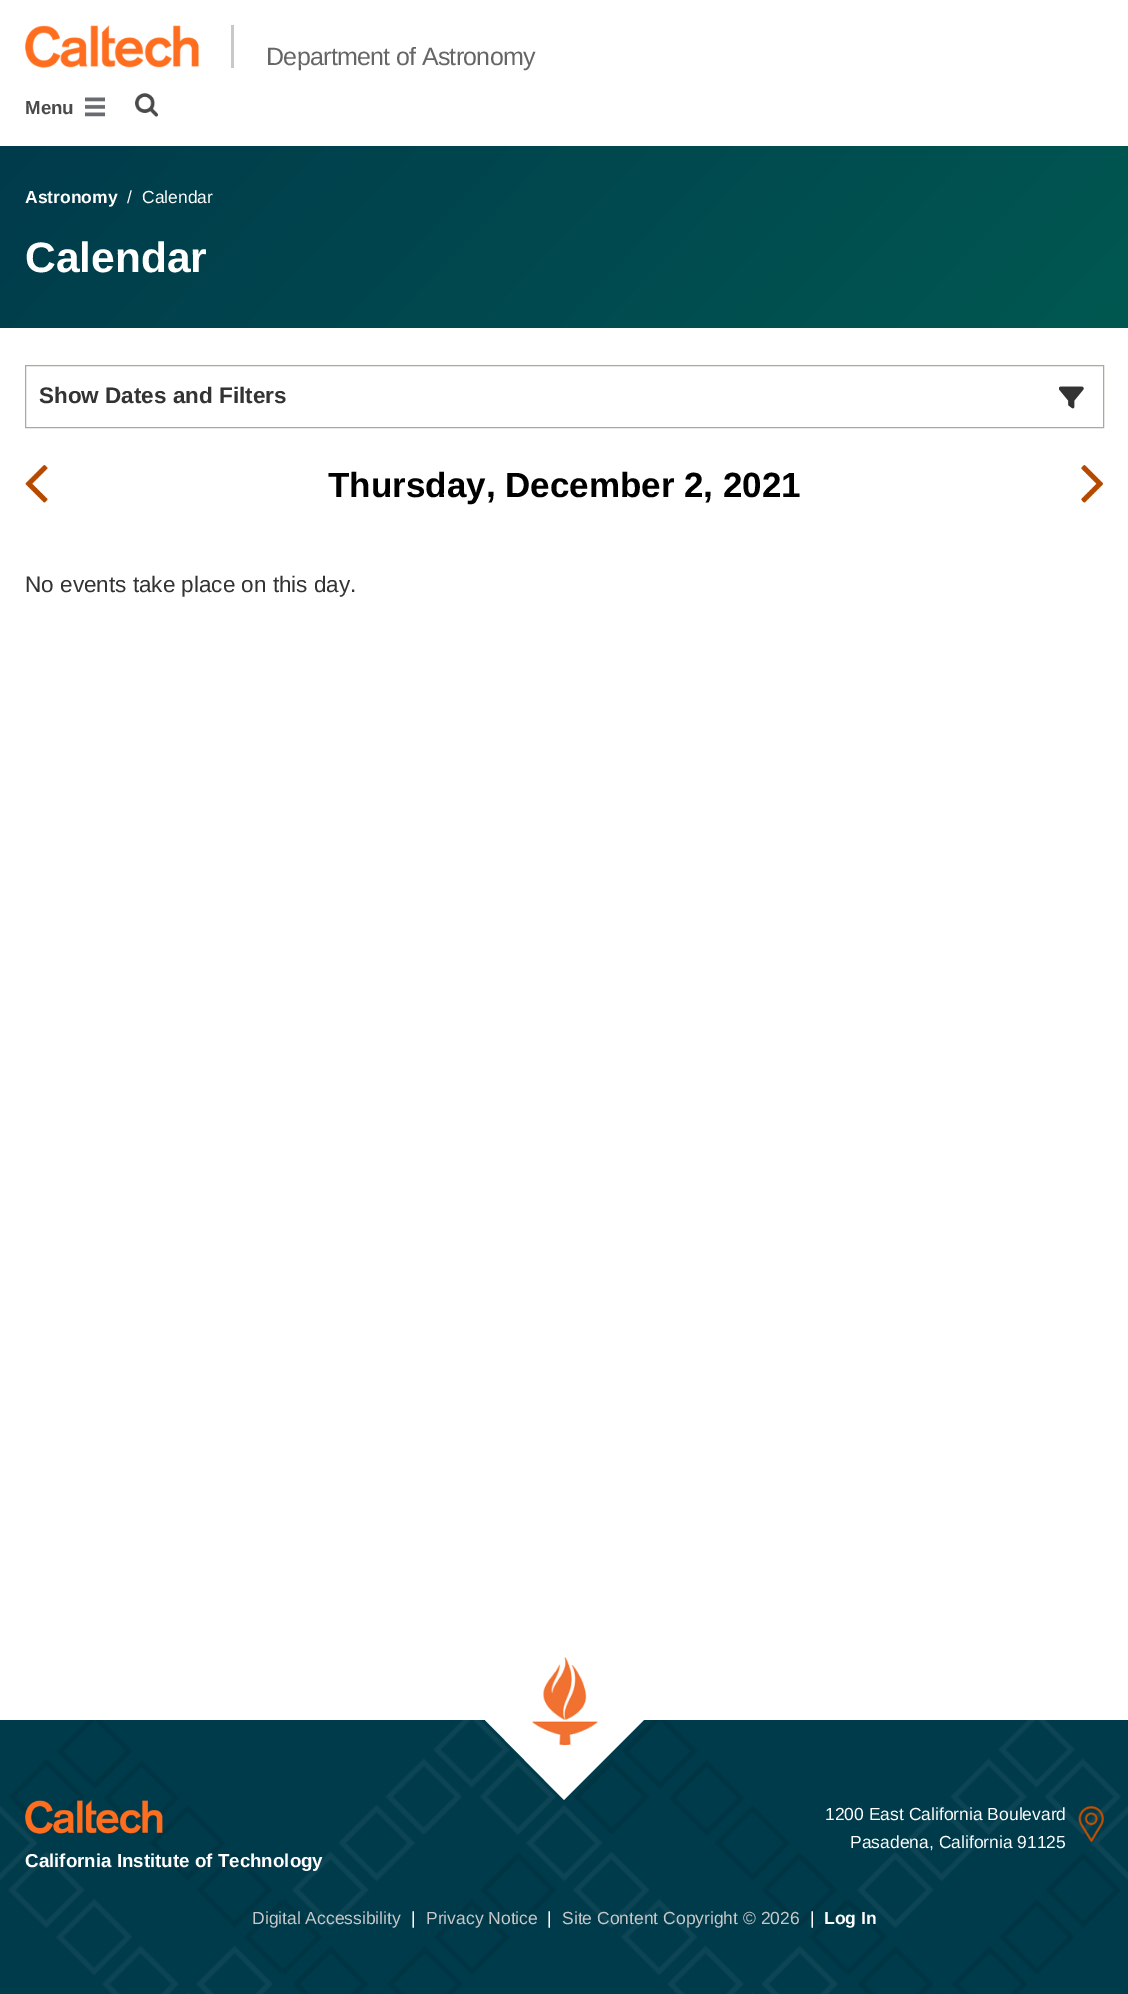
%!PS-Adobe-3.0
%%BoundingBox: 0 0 1128 1994
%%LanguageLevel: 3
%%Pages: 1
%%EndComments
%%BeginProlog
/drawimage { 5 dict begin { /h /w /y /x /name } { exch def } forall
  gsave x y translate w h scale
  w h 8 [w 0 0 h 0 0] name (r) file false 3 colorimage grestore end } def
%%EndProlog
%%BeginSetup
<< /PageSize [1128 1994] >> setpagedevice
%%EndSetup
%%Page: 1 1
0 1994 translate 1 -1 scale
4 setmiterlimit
1 setgray
0 0 1128 1994 rectfill
(images/1.raw) 25 25 174 43 drawimage
0.784 setgray
231 25 3 43 rectfill
(images/2.raw) 85 97 20 20 drawimage
(images/3.raw) 135 93 24 24 drawimage
gsave newpath 0 146 moveto 1128 146 lineto 1128 328 lineto 0 328 lineto closepath clip newpath
<< /ShadingType 2 /ColorSpace /DeviceRGB /Coords [227 -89 902 563] /Extend [true true] /Function << /FunctionType 2 /Domain [0 1] /C0 [0 0.231 0.298] /C1 [0 0.345 0.318] /N 1 >> >> shfill grestore
0.667 0.663 0.624 setrgbcolor
25.5 365.5 1078 62 rectstroke
(images/4.raw) 1059 386 25 23 drawimage
(images/5.raw) 25 465 23 38 drawimage
(images/6.raw) 1081 465 22 38 drawimage
0 0.231 0.298 setrgbcolor
0 1720 1128 274 rectfill
(images/7.raw) 0 1720 1128 274 drawimage
1 setgray
newpath 564 1640 moveto 644 1720 lineto 564 1800 lineto 485 1720 lineto closepath fill
(images/8.raw) 532 1657 66 88 drawimage
(images/9.raw) 1078 1806 26 37 drawimage
(images/10.raw) 25 1800 138 34 drawimage
/LiberationSans-Regular [25 0 0 -25 0 0] selectfont
0.4 setgray
266 65 moveto -0.7 0 (Department of Astronomy) ashow
/LiberationSans-Bold [18.75 0 0 -18.75 0 0] selectfont
0.29 setgray
25 114 moveto (Menu) show
/LiberationSans-Bold [17.5 0 0 -17.5 0 0] selectfont
1 setgray
25 203 moveto (Astronomy) show
/LiberationSans-Regular [17.5 0 0 -17.5 0 0] selectfont
127 203 moveto (/) show
142 203 moveto (Calendar) show
/LiberationSans-Bold [42.5 0 0 -42.5 0 0] selectfont
25 272 moveto (Calendar) show
/LiberationSans-Bold [22.5 0 0 -22.5 0 0] selectfont
0.2 setgray
39 403 moveto (Show Dates and Filters) show
/LiberationSans-Bold [35 0 0 -35 0 0] selectfont
0 setgray
328 497 moveto (Thursday, December 2, 2021) show
/LiberationSans-Regular [22.5 0 0 -22.5 0 0] selectfont
0.2 setgray
25 592 moveto (No events take place on this day.) show
/LiberationSans-Regular [17.5 0 0 -17.5 0 0] selectfont
1 setgray
825 1820 moveto (1200 East California Boulevard) show
850 1848 moveto (Pasadena, California 91125) show
/LiberationSans-Bold [18.75 0 0 -18.75 0 0] selectfont
25 1867 moveto (California Institute of Technology) show
/LiberationSans-Regular [17.5 0 0 -17.5 0 0] selectfont
0.784 setgray
252 1924 moveto (Digital Accessibility) show
1 setgray
411 1924 moveto (|) show
0.784 setgray
426 1924 moveto (Privacy Notice) show
1 setgray
547 1924 moveto (|) show
0.784 setgray
562 1924 moveto (Site Content Copyright © 2026) show
1 setgray
810 1924 moveto (|) show
/LiberationSans-Bold [17.5 0 0 -17.5 0 0] selectfont
824 1924 moveto (Log In) show
showpage
%%EOF
